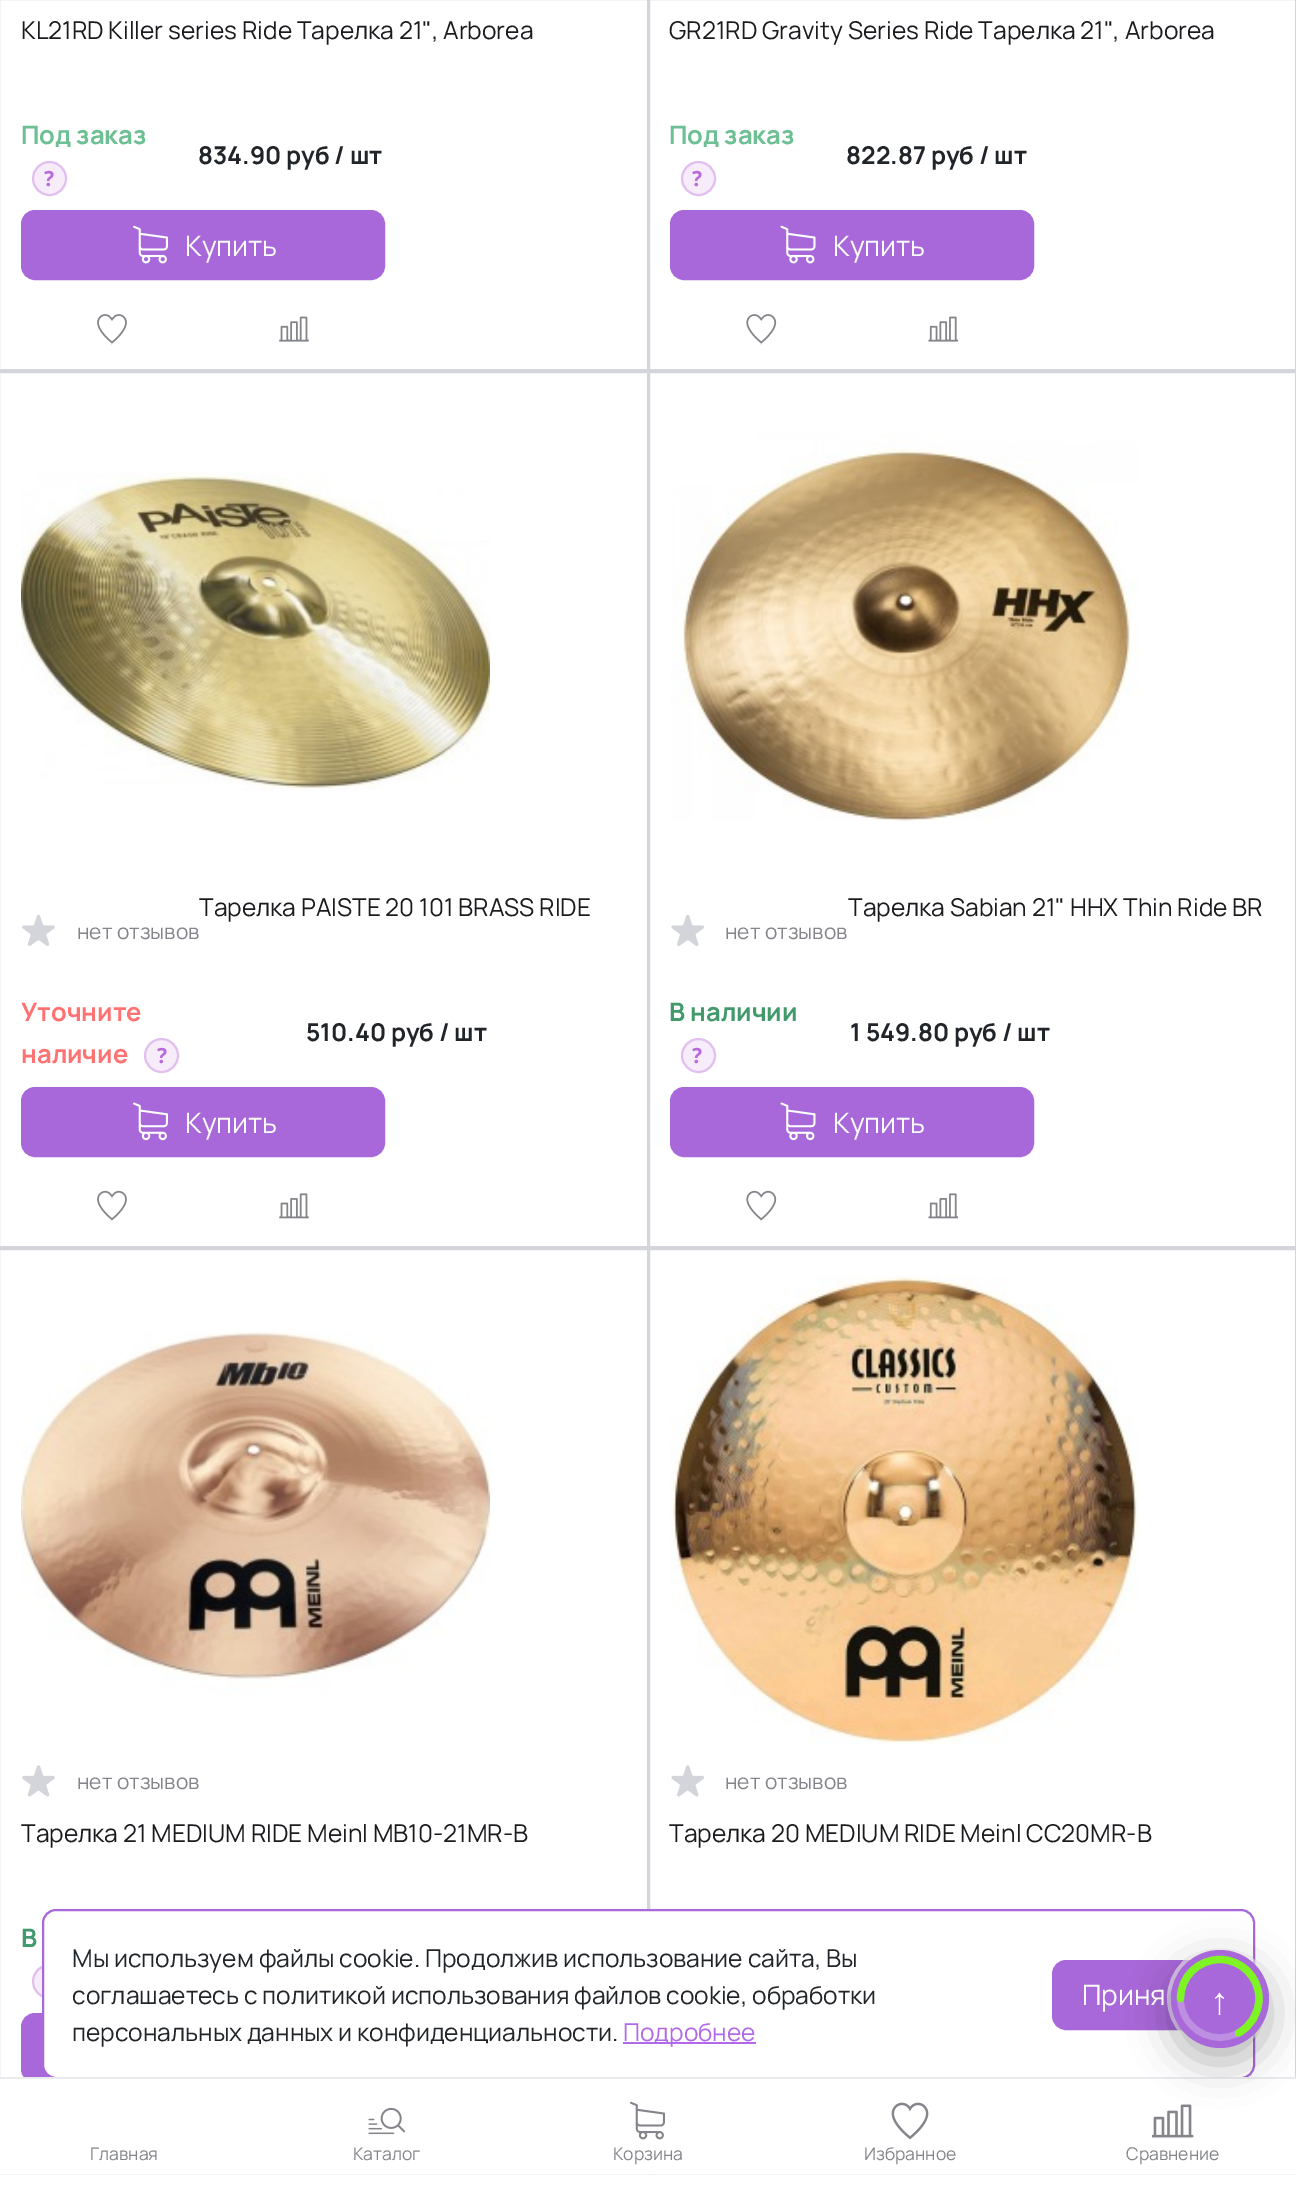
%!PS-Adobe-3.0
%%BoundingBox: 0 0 1296 2186
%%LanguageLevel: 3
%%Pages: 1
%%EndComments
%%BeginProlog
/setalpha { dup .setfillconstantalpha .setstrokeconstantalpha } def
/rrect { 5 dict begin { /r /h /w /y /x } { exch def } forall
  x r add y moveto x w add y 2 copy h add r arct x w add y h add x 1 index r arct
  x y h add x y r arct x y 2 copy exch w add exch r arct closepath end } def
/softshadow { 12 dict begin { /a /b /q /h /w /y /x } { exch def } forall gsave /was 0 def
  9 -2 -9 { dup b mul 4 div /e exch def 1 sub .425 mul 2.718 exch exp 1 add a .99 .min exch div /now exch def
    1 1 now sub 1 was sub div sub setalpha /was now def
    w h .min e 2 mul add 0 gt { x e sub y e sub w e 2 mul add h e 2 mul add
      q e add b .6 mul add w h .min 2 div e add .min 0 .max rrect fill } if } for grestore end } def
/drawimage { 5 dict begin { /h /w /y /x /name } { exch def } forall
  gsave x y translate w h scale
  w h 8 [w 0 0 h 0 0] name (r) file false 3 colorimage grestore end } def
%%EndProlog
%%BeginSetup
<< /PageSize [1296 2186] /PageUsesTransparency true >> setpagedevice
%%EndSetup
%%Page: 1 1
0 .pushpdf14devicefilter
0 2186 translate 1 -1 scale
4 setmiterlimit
1 setgray
0 0 1296 2186 rectfill
0.827 0.835 0.859 setrgbcolor
2 setlinewidth
-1 -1 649 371 rectstroke
0.969 0.929 0.98 setrgbcolor
newpath 49.5 178.5 17.5 0 360 arc closepath fill
0.35 setalpha
0.725 0.416 0.851 setrgbcolor
newpath 49.5 178.5 16.5 0 360 arc closepath stroke
1 setalpha
0.659 0.408 0.851 setrgbcolor
22 211 362 68 13 rrect gsave fill grestore
stroke
(images/1.raw) 133 225 35 39 drawimage
(images/2.raw) 97 314 30 31 drawimage
(images/3.raw) 279 316 30 26 drawimage
0.827 0.835 0.859 setrgbcolor
649 -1 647 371 rectstroke
0.969 0.929 0.98 setrgbcolor
newpath 698.5 178.5 17.5 0 360 arc closepath fill
0.35 setalpha
0.725 0.416 0.851 setrgbcolor
newpath 698.5 178.5 16.5 0 360 arc closepath stroke
1 setalpha
0.659 0.408 0.851 setrgbcolor
671 211 362 68 13 rrect gsave fill grestore
stroke
(images/4.raw) 780 225 36 39 drawimage
(images/5.raw) 746 314 31 31 drawimage
(images/6.raw) 928 316 31 26 drawimage
0.827 0.835 0.859 setrgbcolor
-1 372 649 875 rectstroke
(images/7.raw) 21 472 469 319 drawimage
(images/8.raw) 22 914 33 32 drawimage
0.969 0.929 0.98 setrgbcolor
newpath 161.5 1055.5 17.5 0 360 arc closepath fill
0.35 setalpha
0.725 0.416 0.851 setrgbcolor
newpath 161.5 1055.5 16.5 0 360 arc closepath stroke
1 setalpha
0.659 0.408 0.851 setrgbcolor
22 1088 362 68 13 rrect gsave fill grestore
stroke
(images/9.raw) 133 1102 35 39 drawimage
(images/10.raw) 97 1190 30 32 drawimage
(images/11.raw) 279 1193 30 26 drawimage
0.827 0.835 0.859 setrgbcolor
649 372 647 875 rectstroke
(images/12.raw) 671 434 468 387 drawimage
(images/13.raw) 671 914 33 32 drawimage
0.969 0.929 0.98 setrgbcolor
newpath 698.5 1055.5 17.5 0 360 arc closepath fill
0.35 setalpha
0.725 0.416 0.851 setrgbcolor
newpath 698.5 1055.5 16.5 0 360 arc closepath stroke
1 setalpha
0.659 0.408 0.851 setrgbcolor
671 1088 362 68 13 rrect gsave fill grestore
stroke
(images/14.raw) 780 1102 36 39 drawimage
(images/15.raw) 746 1190 31 32 drawimage
(images/16.raw) 928 1193 31 26 drawimage
0.827 0.835 0.859 setrgbcolor
-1 1249 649 924 rectstroke
(images/17.raw) 21 1331 469 364 drawimage
(images/18.raw) 22 1765 33 32 drawimage
0.969 0.929 0.98 setrgbcolor
newpath 49.5 1981.5 17.5 0 360 arc closepath fill
0.35 setalpha
0.725 0.416 0.851 setrgbcolor
newpath 49.5 1981.5 16.5 0 360 arc closepath stroke
1 setalpha
0.659 0.408 0.851 setrgbcolor
22 2014 362 68 13 rrect gsave fill grestore
stroke
0.827 0.835 0.859 setrgbcolor
649 1249 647 924 rectstroke
(images/19.raw) 670 1275 469 470 drawimage
(images/20.raw) 671 1765 33 32 drawimage
1 setgray
43 1910 1211 168 13 rrect gsave fill grestore
0.659 0.408 0.851 setrgbcolor
stroke
0.694 0.412 0.91 setrgbcolor
623 2042 133 2 rectfill
0.659 0.408 0.851 setrgbcolor
1053 1961 171 68 13 rrect gsave fill grestore
stroke
0.6 setalpha
1 setgray
4 setlinewidth
newpath 1219.5 1998.5 50.5 0 360 arc closepath stroke
1 setalpha
0 2079 1296 95 rectfill
0.918 0.922 0.933 setrgbcolor
0 2077 1296 2 rectfill
(images/24.raw) 1152 2104 42 34 drawimage
0 setgray
1171 1964 98 98 49 21 0.28 softshadow
0.659 0.408 0.851 setrgbcolor
newpath 1220 1999 49 0 360 arc closepath fill
(images/21.raw) 368 2107 38 28 drawimage
(images/22.raw) 630 2101 35 39 drawimage
(images/23.raw) 891 2102 38 38 drawimage
/Manrope-Regular [24.5 0 0 -24.5 0 0] selectfont
0.106 0.106 0.122 setrgbcolor
21 39 moveto (KL21RD Killer series Ride Тарелка 21", Arborea) show
/Manrope-Bold [25.5 0 0 -25.5 0 0] selectfont
0.427 0.749 0.58 setrgbcolor
21 144 moveto (Под заказ) show
/NotoSans-Bold [21 0 0 -21 0 0] selectfont
0.725 0.416 0.851 setrgbcolor
44 186 moveto (?) show
/Manrope-Bold [24.5 0 0 -24.5 0 0] selectfont
0.129 0.145 0.161 setrgbcolor
198 164 moveto (834.90 руб / шт) show
/Manrope-Regular [28 0 0 -28 0 0] selectfont
0.988 setgray
185 256 moveto (Купить) show
/Manrope-Regular [24.5 0 0 -24.5 0 0] selectfont
0.106 0.106 0.122 setrgbcolor
669 39 moveto (GR21RD Gravity Series Ride Тарелка 21", Arborea) show
/Manrope-Bold [25.5 0 0 -25.5 0 0] selectfont
0.427 0.749 0.58 setrgbcolor
669 144 moveto (Под заказ) show
/NotoSans-Bold [21 0 0 -21 0 0] selectfont
0.725 0.416 0.851 setrgbcolor
692 186 moveto (?) show
/Manrope-Bold [24.5 0 0 -24.5 0 0] selectfont
0.129 0.145 0.161 setrgbcolor
846 164 moveto (822.87 руб / шт) show
/Manrope-Regular [28 0 0 -28 0 0] selectfont
0.988 setgray
833 256 moveto (Купить) show
/Manrope-Regular [24.5 0 0 -24.5 0 0] selectfont
0.106 0.106 0.122 setrgbcolor
199 916 moveto (Тарелка PAISTE 20 101 BRASS RIDE) show
/Manrope-Regular [21 0 0 -21 0 0] selectfont
0.518 0.522 0.541 setrgbcolor
77 939 moveto (нет отзывов) show
/Manrope-Bold [25.5 0 0 -25.5 0 0] selectfont
1 0.447 0.447 setrgbcolor
21 1021 moveto (Уточните) show
21 1063 moveto (наличие) show
/NotoSans-Bold [21 0 0 -21 0 0] selectfont
0.725 0.416 0.851 setrgbcolor
157 1063 moveto (?) show
/Manrope-Bold [24.5 0 0 -24.5 0 0] selectfont
0.129 0.145 0.161 setrgbcolor
306 1041 moveto (510.40 руб / шт) show
/Manrope-Regular [28 0 0 -28 0 0] selectfont
0.988 setgray
185 1133 moveto (Купить) show
/Manrope-Regular [24.5 0 0 -24.5 0 0] selectfont
0.106 0.106 0.122 setrgbcolor
848 916 moveto (Тарелка Sabian 21" HHX Thin Ride BR) show
/Manrope-Regular [21 0 0 -21 0 0] selectfont
0.518 0.522 0.541 setrgbcolor
725 939 moveto (нет отзывов) show
/Manrope-Bold [25.5 0 0 -25.5 0 0] selectfont
0.259 0.6 0.42 setrgbcolor
669 1021 moveto (В наличии) show
/NotoSans-Bold [21 0 0 -21 0 0] selectfont
0.725 0.416 0.851 setrgbcolor
692 1063 moveto (?) show
/Manrope-Bold [24.5 0 0 -24.5 0 0] selectfont
0.129 0.145 0.161 setrgbcolor
850 1041 moveto (1 549.80 руб / шт) show
/Manrope-Regular [28 0 0 -28 0 0] selectfont
0.988 setgray
833 1133 moveto (Купить) show
/Manrope-Regular [21 0 0 -21 0 0] selectfont
0.518 0.522 0.541 setrgbcolor
77 1789 moveto (нет отзывов) show
/Manrope-Regular [24.5 0 0 -24.5 0 0] selectfont
0.106 0.106 0.122 setrgbcolor
21 1842 moveto (Тарелка 21 MEDIUM RIDE Meinl MB10-21MR-B) show
/Manrope-Bold [25.5 0 0 -25.5 0 0] selectfont
0.259 0.6 0.42 setrgbcolor
21 1947 moveto (В) show
/Manrope-Regular [21 0 0 -21 0 0] selectfont
0.518 0.522 0.541 setrgbcolor
725 1789 moveto (нет отзывов) show
/Manrope-Regular [24.5 0 0 -24.5 0 0] selectfont
0.106 0.106 0.122 setrgbcolor
669 1842 moveto (Тарелка 20 MEDIUM RIDE Meinl CC20MR-B) show
0.129 0.145 0.161 setrgbcolor
72 1967 moveto (Мы используем файлы cookie. Продолжив использование сайта, Вы) show
72 2004 moveto (соглашаетесь с политикой использования файлов cookie, обработки) show
72 2041 moveto (персональных данных и конфиденциальности.) show
0.694 0.412 0.91 setrgbcolor
623 2041 moveto (Подробнее) show
/Manrope-Regular [28 0 0 -28 0 0] selectfont
0.988 setgray
1082 2005 moveto (Приня) show
/LiberationSans-Bold [38 0 0 -38 0 0] selectfont
1210 2014 moveto (↑) show
0.745 0.557 0.89 setrgbcolor
6.5 setlinewidth
newpath 1180.5 1998.5 moveto 1180.5 1977 1198 1959.5 1220 1959.5 curveto 1241.5 1959.5 1259 1977 1259 1998.5 curveto 1259 2020 1241.5 2037.5 1220 2037.5 curveto 1198 2037.5 1180.5 2020 1180.5 1998.5 curveto closepath stroke
0.498 0.957 0.145 setrgbcolor
7.3 setlinewidth
1 setlinecap
newpath 1180.5 1998.5 moveto 1180.5 1977 1198 1959.5 1220 1959.5 curveto 1241.5 1959.5 1259 1977 1259 1998.5 curveto 1259 2013.5 1250.5 2026.5 1238.5 2033 curveto stroke
/Manrope-Regular [17.5 0 0 -17.5 0 0] selectfont
0.518 0.522 0.541 setrgbcolor
90 2160 moveto (Главная) show
353 2160 moveto (Каталог) show
613 2160 moveto (Корзина) show
864 2160 moveto (Избранное) show
1126 2160 moveto (Сравнение) show
.poppdf14devicefilter showpage
%%EOF
